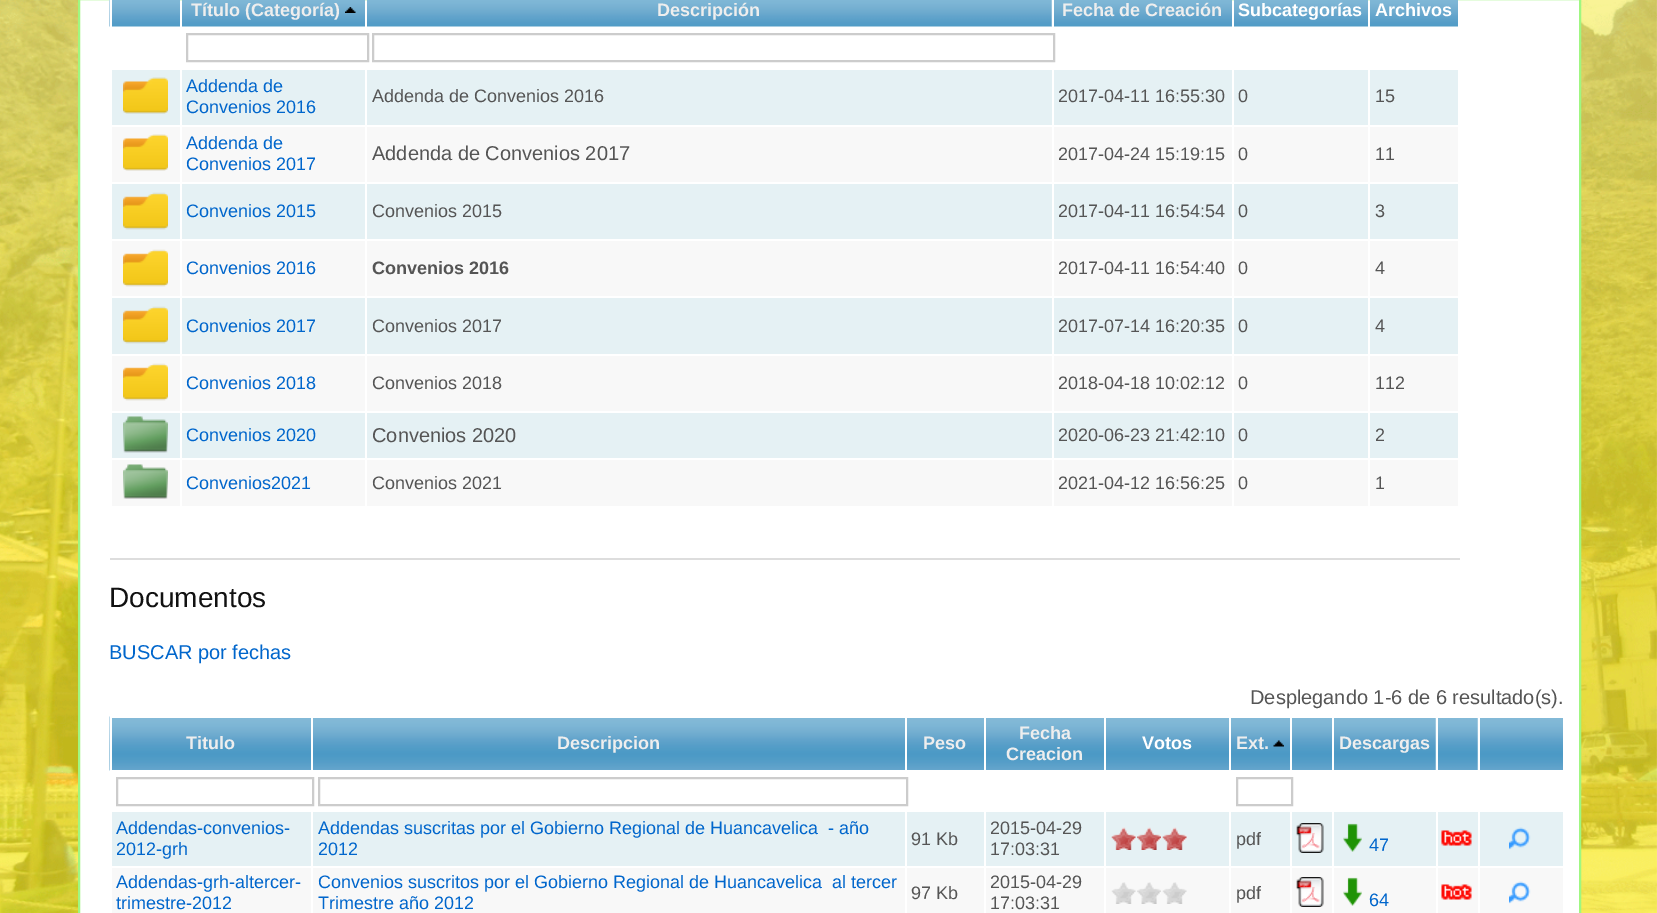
%!PS-Adobe-3.0
%%BoundingBox: 0 0 1657 913
%%LanguageLevel: 3
%%Pages: 1
%%EndComments
%%BeginProlog
/drawimage { 5 dict begin { /h /w /y /x /name } { exch def } forall
  gsave x y translate w h scale
  w h 8 [w 0 0 h 0 0] name (r) file false 3 colorimage grestore end } def
%%EndProlog
%%BeginSetup
<< /PageSize [1657 913] >> setpagedevice
%%EndSetup
%%Page: 1 1
0 913 translate 1 -1 scale
4 setmiterlimit
1 setgray
0 0 1657 913 rectfill
(images/1.raw) 0 0 1657 913 drawimage
newpath 79 -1 moveto 1580 -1 lineto 1580 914 lineto 79 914 lineto closepath gsave fill grestore
0.624 0.969 0.506 setrgbcolor
2 setlinewidth
stroke
(images/2.raw) 109 0 71 27 drawimage
1 setgray
110 0 2 29 rectfill
(images/3.raw) 182 0 183 27 drawimage
(images/4.raw) 345 7 11 6 drawimage
(images/5.raw) 367 0 685 27 drawimage
(images/6.raw) 1051 0 181 27 drawimage
1052 0 2 29 rectfill
(images/7.raw) 1234 0 134 27 drawimage
(images/8.raw) 1370 0 88 27 drawimage
0.8 setgray
187 34 181 27 rectstroke
373 34 681 27 rectstroke
0.898 0.945 0.957 setrgbcolor
112 70 1346 55 rectfill
(images/9.raw) 123 77 45 37 drawimage
0.973 setgray
112 127 1346 55 rectfill
(images/10.raw) 123 134 45 37 drawimage
0.898 0.945 0.957 setrgbcolor
112 184 1346 55 rectfill
(images/11.raw) 123 192 45 38 drawimage
0.973 setgray
112 241 1346 55 rectfill
(images/12.raw) 123 249 45 38 drawimage
0.898 0.945 0.957 setrgbcolor
112 298 1346 56 rectfill
(images/11.raw) 123 306 45 38 drawimage
0.973 setgray
112 356 1346 55 rectfill
(images/12.raw) 123 363 45 38 drawimage
0.898 0.945 0.957 setrgbcolor
112 413 1346 45 rectfill
(images/13.raw) 123 416 45 37 drawimage
0.973 setgray
112 460 1346 46 rectfill
(images/14.raw) 123 464 45 35 drawimage
1 setgray
180 68 2 439 rectfill
365 68 2 439 rectfill
1052 68 2 439 rectfill
1232 68 2 439 rectfill
1368 68 2 439 rectfill
0.867 setgray
110 558 1350 2 rectfill
(images/15.raw) 109 716 202 55 drawimage
1 setgray
110 716 202 2 rectfill
110 770 202 1 rectfill
110 716 2 55 rectfill
(images/16.raw) 313 718 592 52 drawimage
(images/17.raw) 907 718 77 52 drawimage
(images/18.raw) 986 718 118 52 drawimage
(images/19.raw) 1106 718 123 52 drawimage
(images/20.raw) 1231 718 59 52 drawimage
(images/21.raw) 1273 740 11 7 drawimage
(images/22.raw) 1292 718 40 52 drawimage
(images/23.raw) 1334 718 102 52 drawimage
(images/24.raw) 1435 718 43 52 drawimage
1436 716 2 55 rectfill
(images/25.raw) 1477 718 86 52 drawimage
1478 716 2 55 rectfill
0.8 setgray
117 778 196 27 rectstroke
319 778 588 27 rectstroke
1237 778 55 27 rectstroke
0.898 0.945 0.957 setrgbcolor
112 812 1451 54 rectfill
(images/26.raw) 1111 827 25 23 drawimage
(images/27.raw) 1137 827 24 23 drawimage
(images/28.raw) 1162 827 25 23 drawimage
(images/29.raw) 1296 823 28 30 drawimage
(images/30.raw) 1343 823 19 29 drawimage
(images/31.raw) 1441 830 31 16 drawimage
(images/32.raw) 1509 827 22 23 drawimage
0.973 setgray
112 868 1451 45 rectfill
1 setgray
311 810 2 103 rectfill
905 810 2 103 rectfill
984 810 2 103 rectfill
1104 810 2 103 rectfill
(images/33.raw) 1111 882 25 22 drawimage
(images/34.raw) 1137 882 24 22 drawimage
(images/35.raw) 1162 882 25 22 drawimage
1229 810 2 103 rectfill
1290 810 2 103 rectfill
(images/36.raw) 1296 877 28 30 drawimage
1332 810 2 103 rectfill
(images/37.raw) 1343 877 19 29 drawimage
1436 810 2 103 rectfill
(images/38.raw) 1441 884 31 16 drawimage
1478 810 2 103 rectfill
(images/39.raw) 1509 881 22 23 drawimage
/LiberationSans-Bold [18 0 0 -18 0 0] selectfont
0.933 setgray
191 16 moveto (Título \(Categoría\)) show
657 16 moveto (Descripción) show
1062 16 moveto (Fecha de Creación) show
1 setgray
1238 16 moveto (Subcategorías) show
1375 16 moveto (Archivos) show
/LiberationSans-Regular [18 0 0 -18 0 0] selectfont
0 0.4 0.8 setrgbcolor
186 92 moveto (Addenda de) show
186 113 moveto (Convenios 2016) show
0.333 setgray
372 102 moveto (Addenda de Convenios 2016) show
1058 102 moveto (2017-04-11 16:55:30) show
1238 102 moveto (0) show
1375 102 moveto (15) show
0 0.4 0.8 setrgbcolor
186 149 moveto (Addenda de) show
186 170 moveto (Convenios 2017) show
/LiberationSans-Regular [20 0 0 -20 0 0] selectfont
0.333 setgray
372 160 moveto (Addenda de Convenios 2017) show
/LiberationSans-Regular [18 0 0 -18 0 0] selectfont
1058 160 moveto (2017-04-24 15:19:15) show
1238 160 moveto (0) show
1375 160 moveto (11) show
0 0.4 0.8 setrgbcolor
186 217 moveto (Convenios 2015) show
0.333 setgray
372 217 moveto (Convenios 2015) show
1058 217 moveto (2017-04-11 16:54:54) show
1238 217 moveto (0) show
1375 217 moveto (3) show
0 0.4 0.8 setrgbcolor
186 274 moveto (Convenios 2016) show
/LiberationSans-Bold [18 0 0 -18 0 0] selectfont
0.333 setgray
372 274 moveto (Convenios 2016) show
/LiberationSans-Regular [18 0 0 -18 0 0] selectfont
1058 274 moveto (2017-04-11 16:54:40) show
1238 274 moveto (0) show
1375 274 moveto (4) show
0 0.4 0.8 setrgbcolor
186 332 moveto (Convenios 2017) show
0.333 setgray
372 332 moveto (Convenios 2017) show
1058 332 moveto (2017-07-14 16:20:35) show
1238 332 moveto (0) show
1375 332 moveto (4) show
0 0.4 0.8 setrgbcolor
186 389 moveto (Convenios 2018) show
0.333 setgray
372 389 moveto (Convenios 2018) show
1058 389 moveto (2018-04-18 10:02:12) show
1238 389 moveto (0) show
1375 389 moveto (112) show
0 0.4 0.8 setrgbcolor
186 441 moveto (Convenios 2020) show
/LiberationSans-Regular [20 0 0 -20 0 0] selectfont
0.333 setgray
372 442 moveto (Convenios 2020) show
/LiberationSans-Regular [18 0 0 -18 0 0] selectfont
1058 441 moveto (2020-06-23 21:42:10) show
1238 441 moveto (0) show
1375 441 moveto (2) show
0 0.4 0.8 setrgbcolor
186 489 moveto (Convenios2021) show
0.333 setgray
372 489 moveto (Convenios 2021) show
1058 489 moveto (2021-04-12 16:56:25) show
1238 489 moveto (0) show
1375 489 moveto (1) show
/LiberationSans-Regular [28 0 0 -28 0 0] selectfont
0.067 setgray
109 607 moveto (Documentos) show
/LiberationSans-Regular [20 0 0 -20 0 0] selectfont
0 0.4 0.8 setrgbcolor
109 659 moveto (BUSCAR por fechas) show
0.333 setgray
1250 704 moveto (Desplegando 1-6 de 6 resultado\(s\).) show
/LiberationSans-Bold [18 0 0 -18 0 0] selectfont
0.933 setgray
186 749 moveto (Titulo) show
557 749 moveto (Descripcion) show
923 749 moveto (Peso) show
1019 739 moveto (Fecha) show
1006 760 moveto (Creacion) show
1 setgray
1142 749 moveto (Votos) show
0.933 setgray
1236 749 moveto (Ext.) show
1339 749 moveto (Descargas) show
/LiberationSans-Regular [18 0 0 -18 0 0] selectfont
0 0.4 0.8 setrgbcolor
116 834 moveto (Addendas-convenios-) show
116 855 moveto (2012-grh) show
318 834 moveto (Addendas suscritas por el Gobierno Regional de Huancavelica  - año) show
318 855 moveto (2012) show
0.333 setgray
911 845 moveto (91 Kb) show
990 834 moveto (2015-04-29) show
990 855 moveto (17:03:31) show
1236 845 moveto (pdf) show
0 0.4 0.8 setrgbcolor
1369 851 moveto (47) show
116 888 moveto (Addendas-grh-altercer-) show
116 909 moveto (trimestre-2012) show
318 888 moveto (Convenios suscritos por el Gobierno Regional de Huancavelica  al tercer) show
318 909 moveto (Trimestre año 2012) show
0.333 setgray
911 899 moveto (97 Kb) show
990 888 moveto (2015-04-29) show
990 909 moveto (17:03:31) show
1236 899 moveto (pdf) show
0 0.4 0.8 setrgbcolor
1369 906 moveto (64) show
showpage
%%EOF
